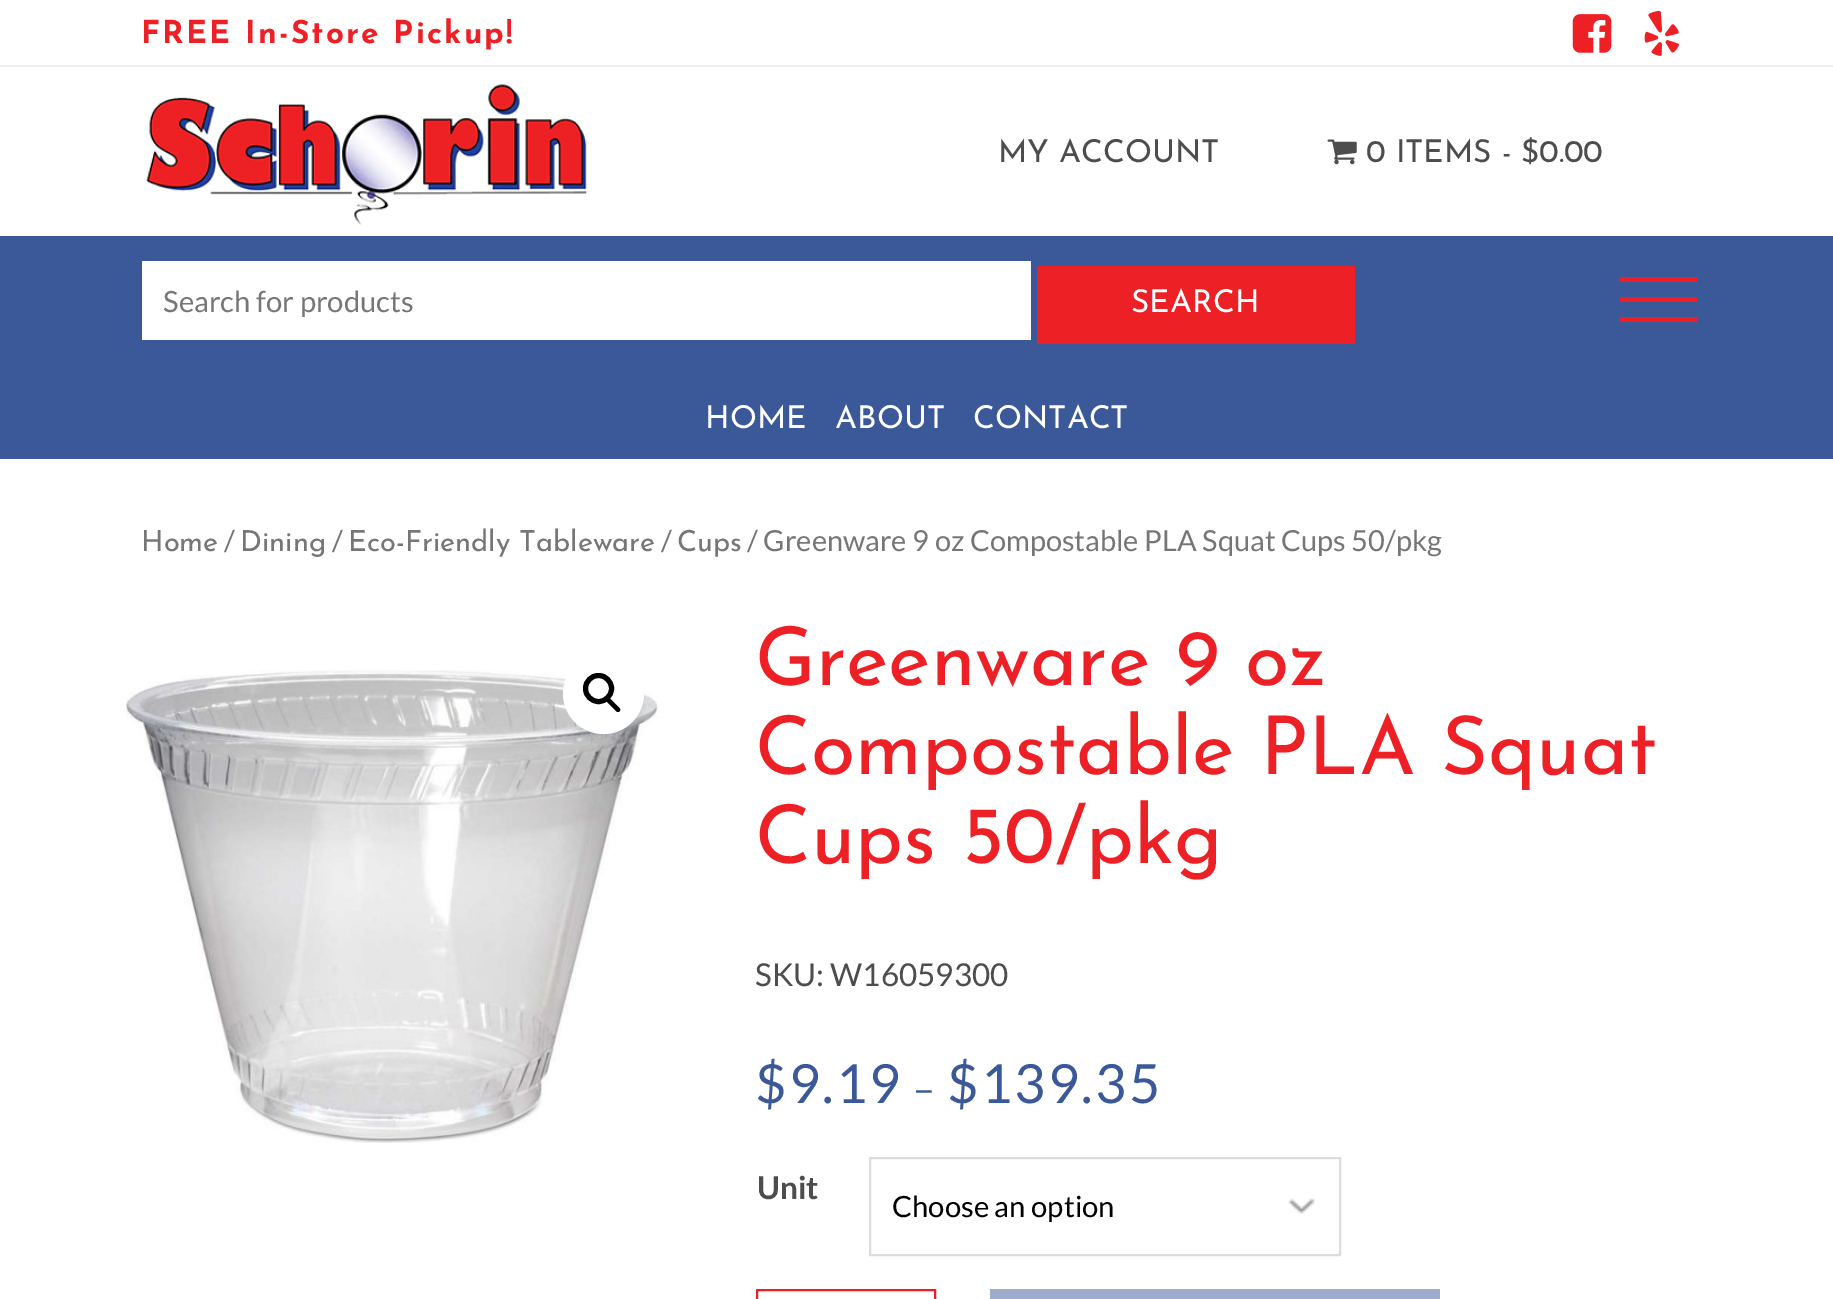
%!PS-Adobe-3.0
%%BoundingBox: 0 0 1833 1299
%%LanguageLevel: 3
%%Pages: 1
%%EndComments
%%BeginProlog
/drawimage { 5 dict begin { /h /w /y /x /name } { exch def } forall
  gsave x y translate w h scale
  w h 8 [w 0 0 h 0 0] name (r) file false 3 colorimage grestore end } def
%%EndProlog
%%BeginSetup
<< /PageSize [1833 1299] >> setpagedevice
%%EndSetup
%%Page: 1 1
0 1299 translate 1 -1 scale
4 setmiterlimit
1 setgray
0 0 1833 1299 rectfill
0.929 setgray
0 65 1833 2 rectfill
(images/1.raw) 1572 14 40 39 drawimage
(images/2.raw) 1644 10 35 46 drawimage
(images/3.raw) 146 84 442 141 drawimage
(images/4.raw) 1327 139 30 26 drawimage
0.231 0.349 0.596 setrgbcolor
0 236 1833 223 rectfill
1 setgray
142 261 889 79 rectfill
0.929 0.125 0.145 setrgbcolor
1037 266 318 78 rectfill
1620 277 77 5 rectfill
1620 297 77 5 rectfill
1620 317 77 5 rectfill
(images/5.raw) 123 670 536 473 drawimage
1 setgray
newpath 603.5 693.5 40.5 0 360 arc closepath fill
0 setgray
5 setlinewidth
newpath 598.5 688.5 13 0 360 arc closepath stroke
newpath 607 698.5 moveto 607.5 697.5 609 697.5 610 698.5 curveto 619.5 708 lineto 620.5 709 620.5 710.5 619.5 711.5 curveto 618.5 712 617 712 616.5 711.5 curveto 607 702 lineto 606 701 606 699.5 607 698.5 curveto closepath fill
(images/6.raw) 1288 1198 27 16 drawimage
0.863 setgray
2 setlinewidth
870 1158 470 97 rectstroke
0.929 0.125 0.145 setrgbcolor
757 1290 178 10 rectstroke
0.616 0.675 0.8 setrgbcolor
990 1289 450 10 rectfill
/JosefinSans-Bold [31.5 0 0 -31.5 0 0] selectfont
0.929 0.125 0.145 setrgbcolor
141 43 moveto 2.25 0 (FREE In-Store Pickup!) ashow
/JosefinSans-Regular [31.5 0 0 -31.5 0 0] selectfont
0.302 setgray
998 162 moveto (MY ACCOUNT) show
1366 162 moveto (0 ITEMS - $0.00) show
/Lato-Regular [29.25 0 0 -29.25 0 0] selectfont
0.463 setgray
163 312 moveto (Search for products) show
/JosefinSans-Regular [31.5 0 0 -31.5 0 0] selectfont
1 setgray
1131 312 moveto (SEARCH) show
705 428 moveto (HOME) show
835 428 moveto (ABOUT) show
973 428 moveto (CONTACT) show
/JosefinSans-Regular [29 0 0 -29 0 0] selectfont
0.463 setgray
141 551 moveto (Home) show
/Lato-Regular [29 0 0 -29 0 0] selectfont
224 551 moveto (/) show
/JosefinSans-Regular [29 0 0 -29 0 0] selectfont
240 551 moveto (Dining) show
/Lato-Regular [29 0 0 -29 0 0] selectfont
332 551 moveto (/) show
/JosefinSans-Regular [29 0 0 -29 0 0] selectfont
348 551 moveto (Eco-Friendly Tableware) show
/Lato-Regular [29 0 0 -29 0 0] selectfont
661 551 moveto (/) show
/JosefinSans-Regular [29 0 0 -29 0 0] selectfont
677 551 moveto (Cups) show
/Lato-Regular [29 0 0 -29 0 0] selectfont
747 551 moveto (/ Greenware 9 oz Compostable PLA Squat Cups 50/pkg) show
/JosefinSans-Regular [81 0 0 -81 0 0] selectfont
0.929 0.125 0.145 setrgbcolor
755 685 moveto (Greenware 9 oz) show
755 774 moveto (Compostable PLA Squat) show
755 863 moveto (Cups 50/pkg) show
/Lato-Regular [31.5 0 0 -31.5 0 0] selectfont
0.302 setgray
755 986 moveto (SKU: W16059300) show
/Lato-Regular [54 0 0 -54 0 0] selectfont
0.231 0.349 0.596 setrgbcolor
755 1103 moveto 2.25 0 ($9.19) ashow
/Lato-Regular [39 0 0 -39 0 0] selectfont
913 1103 moveto 2.25 0 (–) ashow
/Lato-Regular [54 0 0 -54 0 0] selectfont
947 1103 moveto 2.25 0 ($139.35) ashow
/Lato-Bold [31.5 0 0 -31.5 0 0] selectfont
0.302 setgray
757 1199 moveto (Unit) show
/Lato-Regular [29.25 0 0 -29.25 0 0] selectfont
0 setgray
892 1217 moveto (Choose an option) show
showpage
%%EOF
